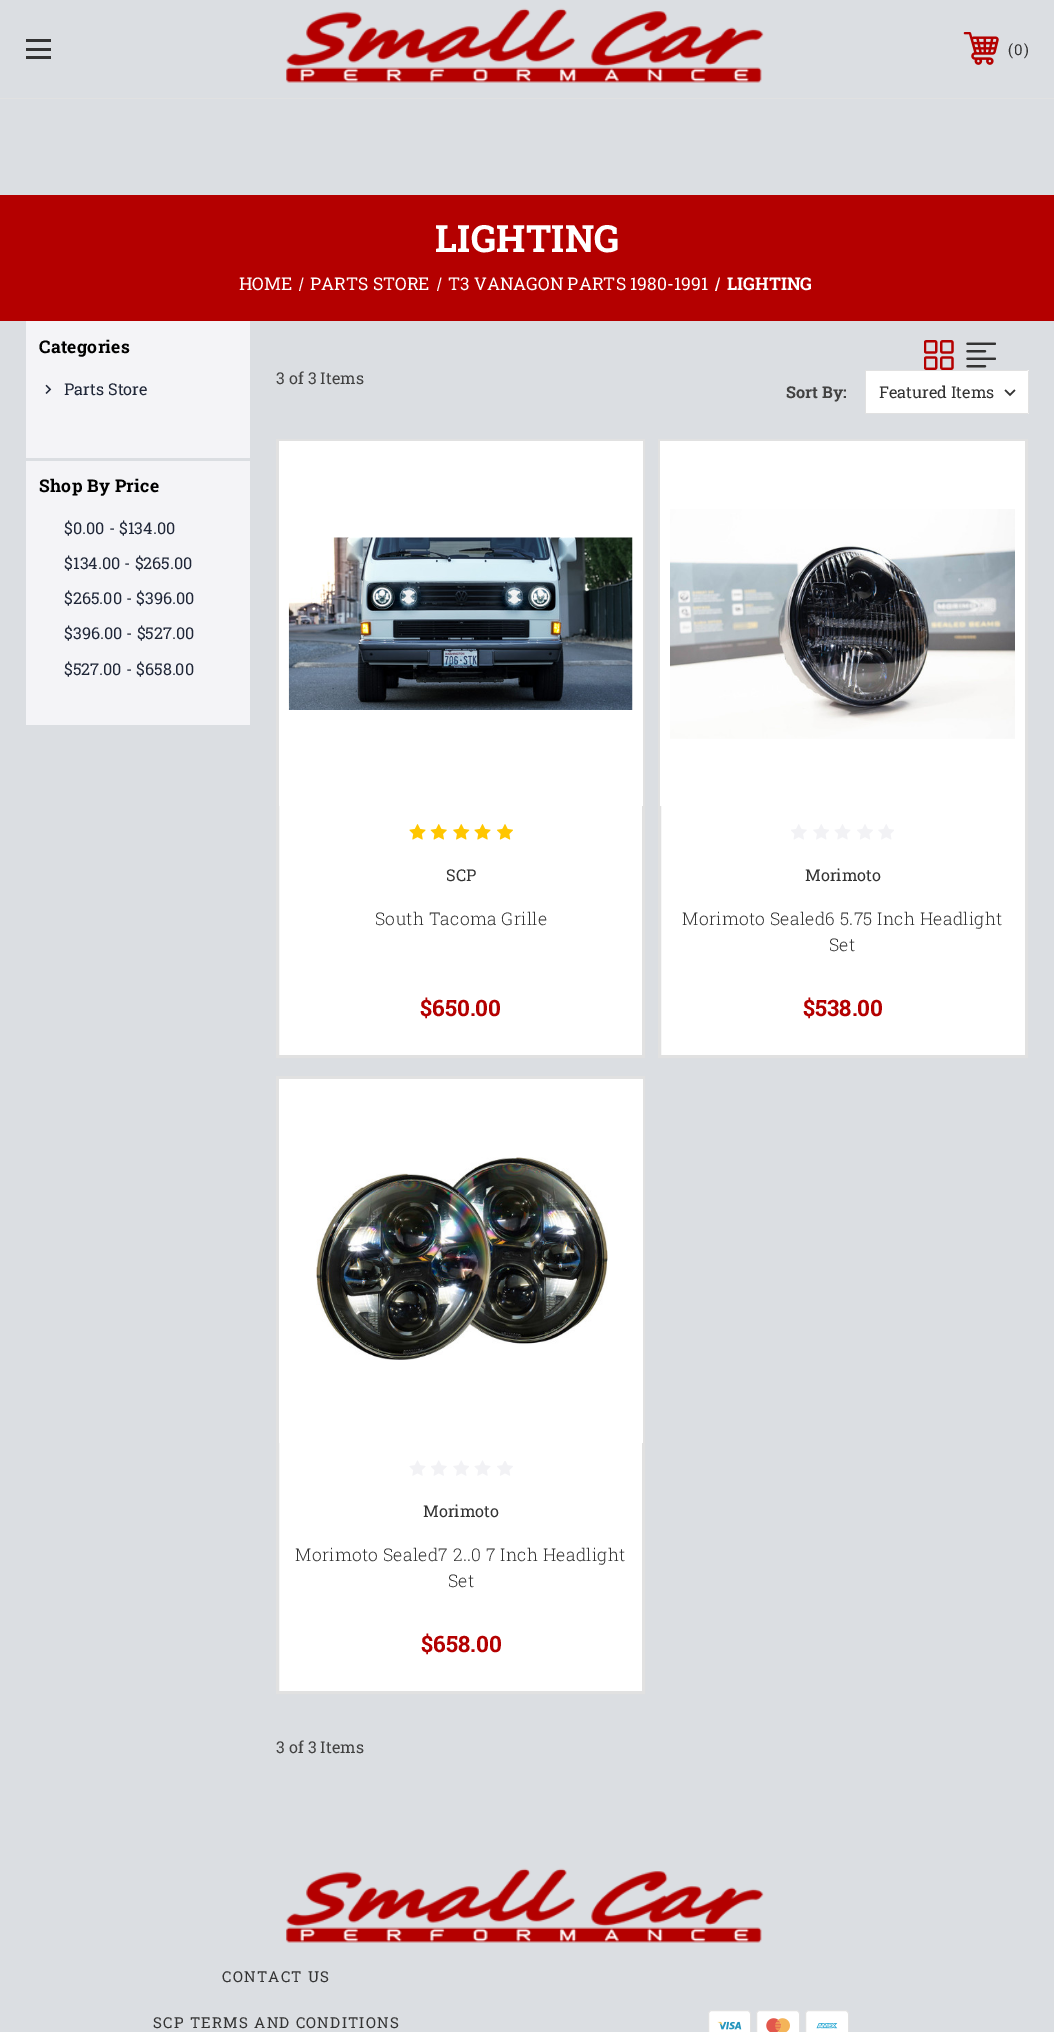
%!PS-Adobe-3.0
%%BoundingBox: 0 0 1054 2032
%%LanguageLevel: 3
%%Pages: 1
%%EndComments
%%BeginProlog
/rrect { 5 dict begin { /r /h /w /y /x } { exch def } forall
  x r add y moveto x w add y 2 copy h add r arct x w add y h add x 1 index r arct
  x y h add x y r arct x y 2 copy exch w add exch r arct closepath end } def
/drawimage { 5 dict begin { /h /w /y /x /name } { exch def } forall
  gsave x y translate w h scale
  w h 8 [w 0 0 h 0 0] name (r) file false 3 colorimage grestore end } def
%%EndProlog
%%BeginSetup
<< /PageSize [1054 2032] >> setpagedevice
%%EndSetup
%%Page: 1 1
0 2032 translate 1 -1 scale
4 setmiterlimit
0.859 0.871 0.886 setrgbcolor
0 0 1054 2032 rectfill
0.882 setgray
0 98 1054 1 rectfill
0.2 setgray
26 48 25 3 rectfill
26 39 25 3 rectfill
26 56 25 3 rectfill
(images/1.raw) 286 8 478 75 drawimage
(images/2.raw) 963 32 36 33 drawimage
0.706 0 0 setrgbcolor
0 195 1054 126 rectfill
1 setgray
newpath 302.5 277.5 moveto 303.5 277.5 lineto 300 291 lineto 299 291 lineto closepath fill
newpath 440.5 277.5 moveto 441.5 277.5 lineto 438 291 lineto 437 291 lineto closepath fill
newpath 719 277.5 moveto 720 277.5 lineto 716.5 291 lineto 715 291 lineto closepath fill
0.957 0.957 0.969 setrgbcolor
26 321 224 404 rectfill
0.859 0.871 0.886 setrgbcolor
26 458 224 3 rectfill
(images/3.raw) 45 384 7 10 drawimage
(images/4.raw) 924 340 30 30 drawimage
(images/5.raw) 966 342 30 26 drawimage
gsave
786 370 245 44 5 rrect clip newpath
1 setgray
866 370 163 44 rectfill
grestore
(images/6.raw) 1004 389 12 8 drawimage
0.882 setgray
newpath 865 370 moveto 865 414 lineto 1026 414 lineto 1027 414 1028 414 1029 413 curveto 1029 371 lineto 1026 370 lineto closepath 866 371 moveto 866 413 lineto 1028 413 lineto 1028 371 lineto closepath eofill
1 setgray
279 806 363 249 rectfill
0.882 setgray
3 setlinewidth
277.5 440.5 366 616 rectstroke
1 setgray
279 441 364 365 rectfill
(images/7.raw) 288 537 345 173 drawimage
(images/8.raw) 409 824 17 16 drawimage
(images/9.raw) 430 824 17 16 drawimage
(images/10.raw) 453 824 17 16 drawimage
(images/8.raw) 474 824 17 16 drawimage
(images/11.raw) 496 824 17 16 drawimage
661 806 364 249 rectfill
0.882 setgray
659.5 440.5 367 616 rectstroke
1 setgray
660 441 365 365 rectfill
(images/12.raw) 670 509 345 230 drawimage
(images/13.raw) 791 824 16 16 drawimage
(images/14.raw) 813 824 16 16 drawimage
(images/15.raw) 834 824 17 16 drawimage
(images/16.raw) 857 824 16 16 drawimage
(images/14.raw) 878 824 16 16 drawimage
279 1443 363 248 rectfill
0.882 setgray
277.5 1077.5 366 615 rectstroke
1 setgray
279 1079 364 364 rectfill
(images/17.raw) 316 1157 292 203 drawimage
(images/18.raw) 409 1460 17 16 drawimage
(images/19.raw) 431 1460 16 16 drawimage
(images/20.raw) 453 1460 16 16 drawimage
(images/18.raw) 474 1460 17 16 drawimage
(images/21.raw) 497 1461 16 15 drawimage
(images/22.raw) 286 1868 478 75 drawimage
708.5 2010.5 42 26 3.5 rrect gsave fill grestore
0.882 setgray
1 setlinewidth
stroke
(images/23.raw) 717 2021 25 9 drawimage
1 setgray
756.5 2010.5 43 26 3.5 rrect gsave fill grestore
0.882 setgray
stroke
(images/24.raw) 766 2018 24 14 drawimage
1 setgray
805.5 2010.5 43 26 3.5 rrect gsave fill grestore
0.882 setgray
stroke
(images/25.raw) 816 2023 22 6 drawimage
/RobotoSlab-Regular [15 0 0 -15 0 0] selectfont
0.2 setgray
1008 55 moveto (\() show
1014 55 moveto (0) show
1024 55 moveto (\)) show
/RobotoSlab-Bold [37.5 0 0 -37.5 0 0] selectfont
1 setgray
435 252 moveto 0.3 0 (LIGHTING) ashow
/RobotoSlab-Regular [17.5 0 0 -17.5 0 0] selectfont
239 290 moveto (HOME) show
310 290 moveto (PARTS STORE) show
448 290 moveto (T3 VANAGON PARTS 1980-1991) show
/RobotoSlab-Bold [17.5 0 0 -17.5 0 0] selectfont
727 290 moveto (LIGHTING) show
0 setgray
39 353 moveto 0.3 0 (Categories) ashow
/RobotoSlab-Regular [16.25 0 0 -16.25 0 0] selectfont
0.125 0.153 0.22 setrgbcolor
64 395 moveto (Parts Store) show
/RobotoSlab-Bold [17.5 0 0 -17.5 0 0] selectfont
0 setgray
39 492 moveto 0.3 0 (Shop By Price) ashow
/RobotoSlab-Regular [16.25 0 0 -16.25 0 0] selectfont
0.125 0.153 0.22 setrgbcolor
64 534 moveto ($0.00 - $134.00) show
64 569 moveto ($134.00 - $265.00) show
64 604 moveto ($265.00 - $396.00) show
64 639 moveto ($396.00 - $527.00) show
64 675 moveto ($527.00 - $658.00) show
0.259 setgray
276 384 moveto (3 of 3 Items) show
/RobotoSlab-Bold [16.25 0 0 -16.25 0 0] selectfont
786 398 moveto (Sort By:) show
/RobotoSlab-Regular [16.25 0 0 -16.25 0 0] selectfont
0.2 setgray
879 398 moveto (Featured Items) show
446 881 moveto (SCP) show
/RobotoSlab-Light [17.5 0 0 -17.5 0 0] selectfont
375 925 moveto 0.3 0 (South Tacoma Grille) ashow
/RobotoSlab-Bold [22.5 0 0 -22.5 0 0] selectfont
0.706 0 0 setrgbcolor
420 1016 moveto ($650.00) show
/RobotoSlab-Regular [16.25 0 0 -16.25 0 0] selectfont
0.2 setgray
805 881 moveto (Morimoto) show
/RobotoSlab-Light [17.5 0 0 -17.5 0 0] selectfont
682 925 moveto 0.3 0 (Morimoto Sealed6 5.75 Inch Headlight) ashow
829 951 moveto 0.3 0 (Set) ashow
/RobotoSlab-Bold [22.5 0 0 -22.5 0 0] selectfont
0.706 0 0 setrgbcolor
803 1016 moveto ($538.00) show
/RobotoSlab-Regular [16.25 0 0 -16.25 0 0] selectfont
0.2 setgray
423 1517 moveto (Morimoto) show
/RobotoSlab-Light [17.5 0 0 -17.5 0 0] selectfont
295 1561 moveto 0.3 0 (Morimoto Sealed7 2..0 7 Inch Headlight) ashow
448 1587 moveto 0.3 0 (Set) ashow
/RobotoSlab-Bold [22.5 0 0 -22.5 0 0] selectfont
0.706 0 0 setrgbcolor
421 1652 moveto ($658.00) show
/RobotoSlab-Regular [16.25 0 0 -16.25 0 0] selectfont
0.259 setgray
276 1753 moveto (3 of 3 Items) show
/RobotoSlab-Regular [15 0 0 -15 0 0] selectfont
0.2 setgray
222 1982 moveto 1.25 0 (CONTACT US) ashow
153 2028 moveto 1.25 0 (SCP TERMS AND CONDITIONS) ashow
showpage
%%EOF
